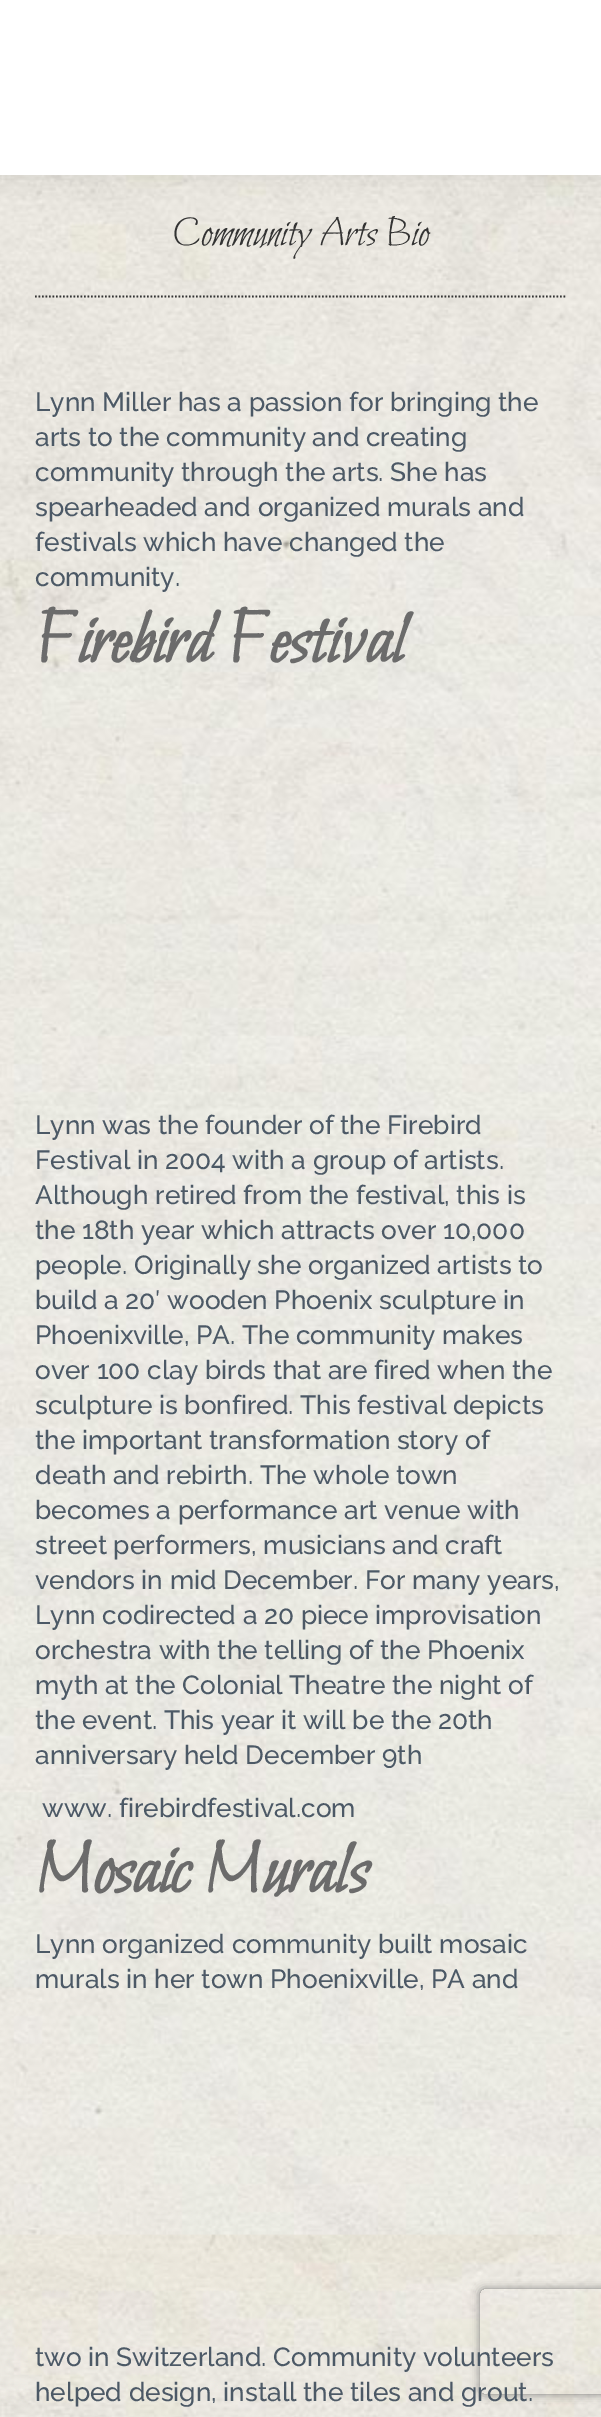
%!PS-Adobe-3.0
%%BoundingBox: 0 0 601 2417
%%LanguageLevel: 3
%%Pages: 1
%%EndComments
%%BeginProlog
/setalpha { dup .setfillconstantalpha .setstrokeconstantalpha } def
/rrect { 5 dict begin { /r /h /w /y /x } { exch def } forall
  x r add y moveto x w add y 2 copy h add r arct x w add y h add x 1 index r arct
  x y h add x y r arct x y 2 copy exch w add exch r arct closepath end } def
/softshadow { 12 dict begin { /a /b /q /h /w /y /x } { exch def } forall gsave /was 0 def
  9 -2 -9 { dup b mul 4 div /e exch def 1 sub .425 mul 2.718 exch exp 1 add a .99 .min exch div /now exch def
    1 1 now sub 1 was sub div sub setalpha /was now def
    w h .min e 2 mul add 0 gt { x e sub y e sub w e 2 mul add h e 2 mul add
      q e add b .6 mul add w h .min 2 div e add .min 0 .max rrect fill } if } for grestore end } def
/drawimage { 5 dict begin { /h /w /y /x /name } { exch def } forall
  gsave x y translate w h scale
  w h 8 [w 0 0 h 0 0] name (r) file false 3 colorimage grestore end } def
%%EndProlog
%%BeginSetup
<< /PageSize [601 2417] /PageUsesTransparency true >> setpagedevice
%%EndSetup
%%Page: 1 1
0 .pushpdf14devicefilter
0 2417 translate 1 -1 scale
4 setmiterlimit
1 setgray
0 0 601 2417 rectfill
(images/1.raw) 0 175 601 2242 drawimage
0 setgray
-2 -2 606 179 0 13 0.07 softshadow
1 setgray
0 0 601 175 rectfill
0.2 setgray
1.8 setlinewidth
[1.75 1.75] 0 setdash
newpath 35 296.5 moveto 567 296.5 lineto stroke
gsave
newpath 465 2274 moveto 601 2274 lineto 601 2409 lineto 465 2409 lineto closepath 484 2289 moveto 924 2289 lineto 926 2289 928 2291 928 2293 curveto 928 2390 lineto 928 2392 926 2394 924 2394 curveto 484 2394 lineto 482 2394 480 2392 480 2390 curveto 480 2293 lineto 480 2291 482 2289 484 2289 curveto closepath eoclip newpath
0.502 setgray
480 2289 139 105 4 4.5 1 softshadow
grestore
/Bilbo-Regular [42 0 0 -42 0 0] selectfont
172 245 moveto (Community Arts Bio) show
/Raleway-Medium [26.25 0 0 -26.25 0 0] selectfont
0.298 0.349 0.4 setrgbcolor
35 411 moveto (Lynn Miller has a passion for bringing the) show
35 446 moveto (arts to the community and creating) show
35 481 moveto (community through the arts. She has) show
35 516 moveto (spearheaded and organized murals and) show
35 551 moveto (festivals which have changed the) show
35 586 moveto (community.) show
/Bilbo-Bold [77 0 0 -77 0 0] selectfont
0.42 setgray
35 662 moveto (Firebird Festival) show
/Raleway-Medium [26.25 0 0 -26.25 0 0] selectfont
0.298 0.349 0.4 setrgbcolor
35 1134 moveto (Lynn was the founder of the Firebird) show
35 1169 moveto (Festival in 2004 with a group of artists.) show
35 1204 moveto (Although retired from the festival, this is) show
35 1239 moveto (the 18th year which attracts over 10,000) show
35 1274 moveto (people. Originally she organized artists to) show
35 1309 moveto (build a 20′ wooden Phoenix sculpture in) show
35 1344 moveto (Phoenixville, PA. The community makes) show
35 1379 moveto (over 100 clay birds that are fired when the) show
35 1414 moveto (sculpture is bonfired. This festival depicts) show
35 1449 moveto (the important transformation story of) show
35 1484 moveto (death and rebirth. The whole town) show
35 1519 moveto (becomes a performance art venue with) show
35 1554 moveto (street performers, musicians and craft) show
35 1589 moveto (vendors in mid December. For many years,) show
35 1624 moveto (Lynn codirected a 20 piece improvisation) show
35 1659 moveto (orchestra with the telling of the Phoenix) show
35 1694 moveto (myth at the Colonial Theatre the night of) show
35 1729 moveto (the event. This year it will be the 20th) show
35 1764 moveto (anniversary held December 9th) show
42 1817 moveto (www. firebirdfestival.com) show
/Bilbo-Bold [77 0 0 -77 0 0] selectfont
0.42 setgray
35 1892 moveto (Mosaic Murals) show
/Raleway-Medium [26.25 0 0 -26.25 0 0] selectfont
0.298 0.349 0.4 setrgbcolor
35 1953 moveto (Lynn organized community built mosaic) show
35 1988 moveto (murals in her town Phoenixville, PA and) show
35 2366 moveto (two in Switzerland. Community volunteers) show
35 2401 moveto (helped design, install the tiles and grout.) show
.poppdf14devicefilter showpage
%%EOF
